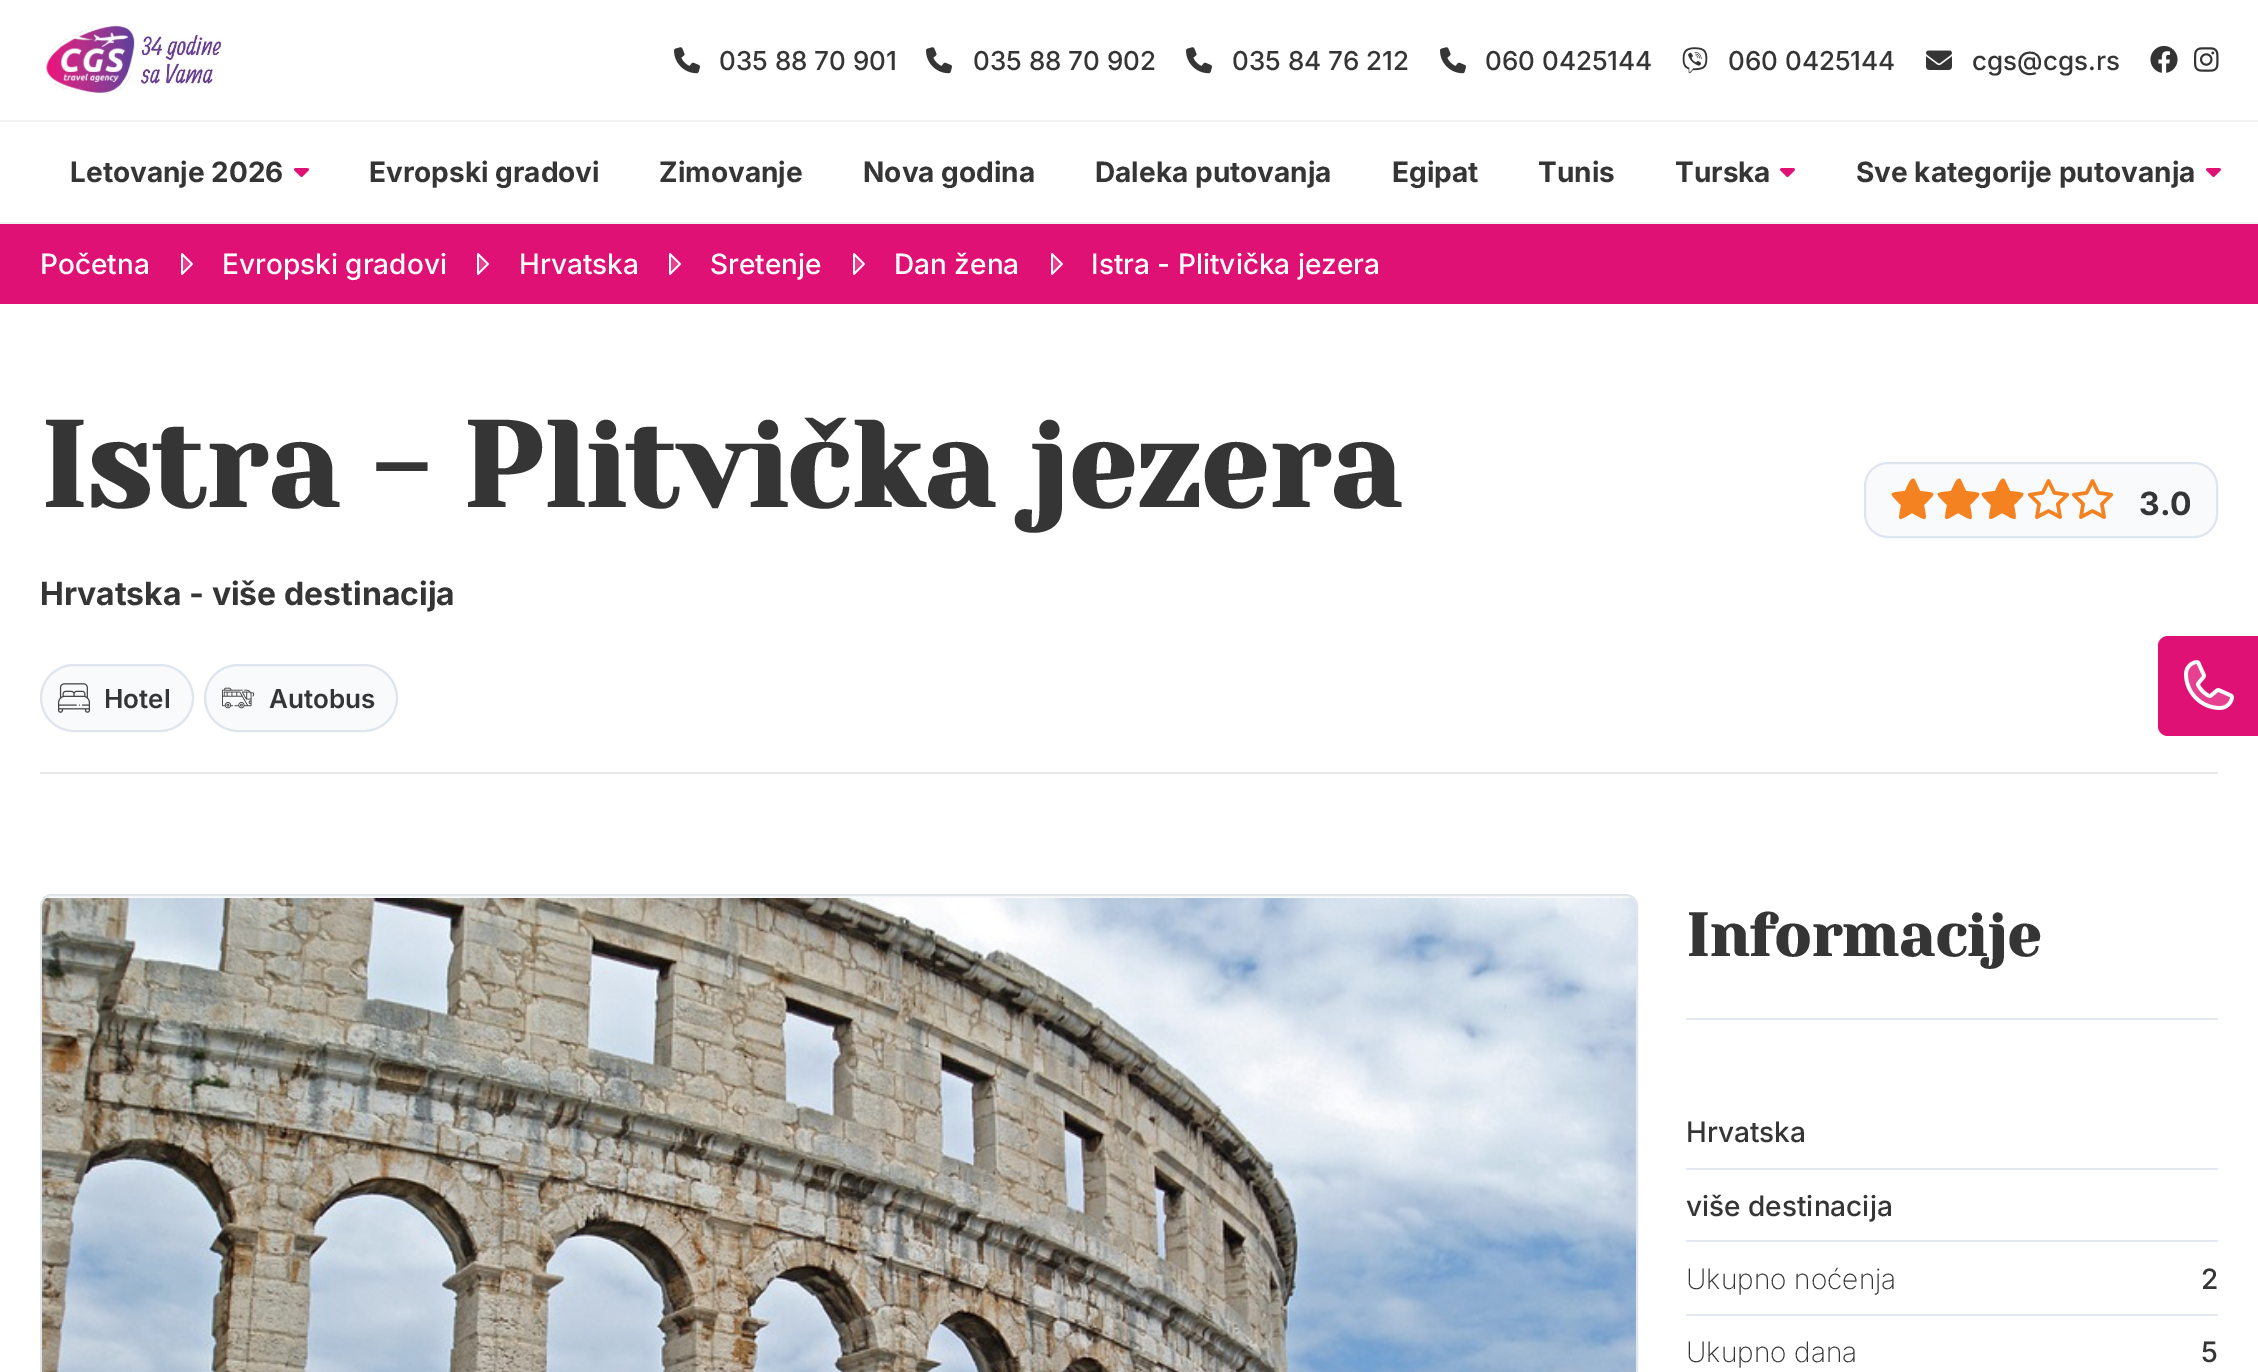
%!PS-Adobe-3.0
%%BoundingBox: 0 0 2258 1372
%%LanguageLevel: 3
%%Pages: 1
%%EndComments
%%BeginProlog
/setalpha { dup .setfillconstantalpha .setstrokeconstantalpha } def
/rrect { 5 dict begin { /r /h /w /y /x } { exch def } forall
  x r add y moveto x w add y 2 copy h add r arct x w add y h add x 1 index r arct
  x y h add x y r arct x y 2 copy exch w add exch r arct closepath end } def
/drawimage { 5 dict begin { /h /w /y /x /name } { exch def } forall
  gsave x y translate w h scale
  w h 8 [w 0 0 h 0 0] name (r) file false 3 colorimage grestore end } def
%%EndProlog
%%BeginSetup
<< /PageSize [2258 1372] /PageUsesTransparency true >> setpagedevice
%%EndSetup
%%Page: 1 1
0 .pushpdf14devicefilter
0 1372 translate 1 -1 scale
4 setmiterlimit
1 setgray
0 0 2258 1372 rectfill
0.949 setgray
0 222 2258 2 rectfill
0 120 2258 2 rectfill
(images/1.raw) 44 25 178 68 drawimage
(images/2.raw) 674 47 26 27 drawimage
(images/2.raw) 926 47 26 27 drawimage
(images/2.raw) 1186 47 26 27 drawimage
(images/2.raw) 1440 47 26 27 drawimage
(images/3.raw) 1682 47 26 27 drawimage
(images/4.raw) 1926 50 26 20 drawimage
(images/5.raw) 2150 45 28 28 drawimage
(images/6.raw) 2194 47 25 25 drawimage
(images/7.raw) 294 168 15 9 drawimage
(images/7.raw) 1780 168 15 9 drawimage
(images/7.raw) 2206 168 15 9 drawimage
0.878 0.067 0.459 setrgbcolor
newpath 2168 636 moveto 2258 636 lineto 2258 736 lineto 2168 736 lineto 2162.5 736 2158 731.5 2158 726 curveto 2158 646 lineto 2158 640.5 2162.5 636 2168 636 curveto closepath fill
(images/8.raw) 2184 660 50 50 drawimage
0 224 2258 80 rectfill
(images/9.raw) 181 253 12 22 drawimage
(images/9.raw) 477 253 12 22 drawimage
(images/9.raw) 669 253 12 22 drawimage
(images/9.raw) 853 253 12 22 drawimage
(images/9.raw) 1051 253 12 22 drawimage
0.91 setgray
40 772 2178 2 rectfill
0.976 0.98 0.988 setrgbcolor
1865 463 352 74 23 rrect gsave fill grestore
0.875 0.898 0.933 setrgbcolor
2 setlinewidth
stroke
0.961 0.51 0.125 setrgbcolor
newpath 1915 480 moveto 1911 474 1906 490 1905 491 curveto 1888 493 1888 492 1901 505 curveto 1898 522 1897 522 1912 513 curveto 1928 522 1927 522 1924 505 curveto 1937 492 1937 493 1920 491 curveto closepath fill
newpath 1961 480 moveto 1957 474 1952 490 1951 491 curveto 1934 493 1934 492 1947 505 curveto 1944 522 1943 522 1958 513 curveto 1974 522 1973 522 1970 505 curveto 1983 492 1983 493 1966 491 curveto closepath fill
newpath 2005 480 moveto 2001 474 1996 490 1995 491 curveto 1978 493 1978 492 1991 505 curveto 1988 522 1987 522 2002 513 curveto 2018 522 2017 522 2014 505 curveto 2027 492 2027 493 2010 491 curveto closepath fill
(images/10.raw) 2027 479 43 40 drawimage
(images/10.raw) 2071 479 43 40 drawimage
0.976 0.98 0.988 setrgbcolor
40 664 154 68 34 rrect fill
0.2 setalpha
0.463 0.565 0.698 setrgbcolor
41 665 152 66 33 rrect stroke
1 setalpha
(images/11.raw) 58 683 32 30 drawimage
0.976 0.98 0.988 setrgbcolor
204 664 194 68 34 rrect fill
0.2 setalpha
0.463 0.565 0.698 setrgbcolor
205 665 192 66 33 rrect stroke
1 setalpha
(images/12.raw) 222 687 32 22 drawimage
0.976 0.98 0.988 setrgbcolor
41 895 1596 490 11 rrect gsave fill grestore
0.875 0.898 0.929 setrgbcolor
stroke
(images/13.raw) 42 898 1594 474 drawimage
0.894 0.914 0.941 setrgbcolor
1686 1018 532 2 rectfill
1686 1168 532 2 rectfill
1686 1240 532 2 rectfill
1686 1314 532 2 rectfill
/Inter-Medium [26 0 0 -26 0 0] selectfont
0.208 setgray
719 70 moveto (035 88 70 901) show
973 70 moveto (035 88 70 902) show
1232 70 moveto (035 84 76 212) show
1485 70 moveto (060 0425144) show
1728 70 moveto (060 0425144) show
1972 70 moveto (cgs@cgs.rs) show
/Inter-Bold [28 0 0 -28 0 0] selectfont
70 182 moveto (Letovanje 2026) show
369 182 moveto (Evropski gradovi) show
659 182 moveto (Zimovanje) show
863 182 moveto (Nova godina) show
1095 182 moveto (Daleka putovanja) show
1392 182 moveto (Egipat) show
1538 182 moveto (Tunis) show
1675 182 moveto (Turska) show
1856 182 moveto (Sve kategorije putovanja) show
/Inter-Medium [28 0 0 -28 0 0] selectfont
1 setgray
40 274 moveto (Početna) show
222 274 moveto (Evropski gradovi) show
519 274 moveto (Hrvatska) show
710 274 moveto (Sretenje) show
894 274 moveto (Dan žena) show
1091 274 moveto (Istra - Plitvička jezera) show
/YesevaOne-Bold [120 0 0 -120 0 0] selectfont
0.208 setgray
40 507 moveto (Istra - Plitvička jezera) show
/Inter-Bold [32 0 0 -32 0 0] selectfont
40 605 moveto (Hrvatska - više destinacija) show
2139 515 moveto (3.0) show
/Inter-SemiBold [26 0 0 -26 0 0] selectfont
104 708 moveto (Hotel) show
269 708 moveto (Autobus) show
/YesevaOne-Bold [60 0 0 -60 0 0] selectfont
1686 956 moveto (Informacije) show
/Inter-Medium [28 0 0 -28 0 0] selectfont
1686 1142 moveto (Hrvatska) show
1686 1216 moveto (više destinacija) show
/Inter-ExtraLight [28 0 0 -28 0 0] selectfont
1686 1289 moveto (Ukupno noćenja) show
/Inter-Medium [28 0 0 -28 0 0] selectfont
2201 1289 moveto (2) show
/Inter-ExtraLight [28 0 0 -28 0 0] selectfont
1686 1362 moveto (Ukupno dana) show
/Inter-Medium [28 0 0 -28 0 0] selectfont
2201 1362 moveto (5) show
.poppdf14devicefilter showpage
%%EOF
